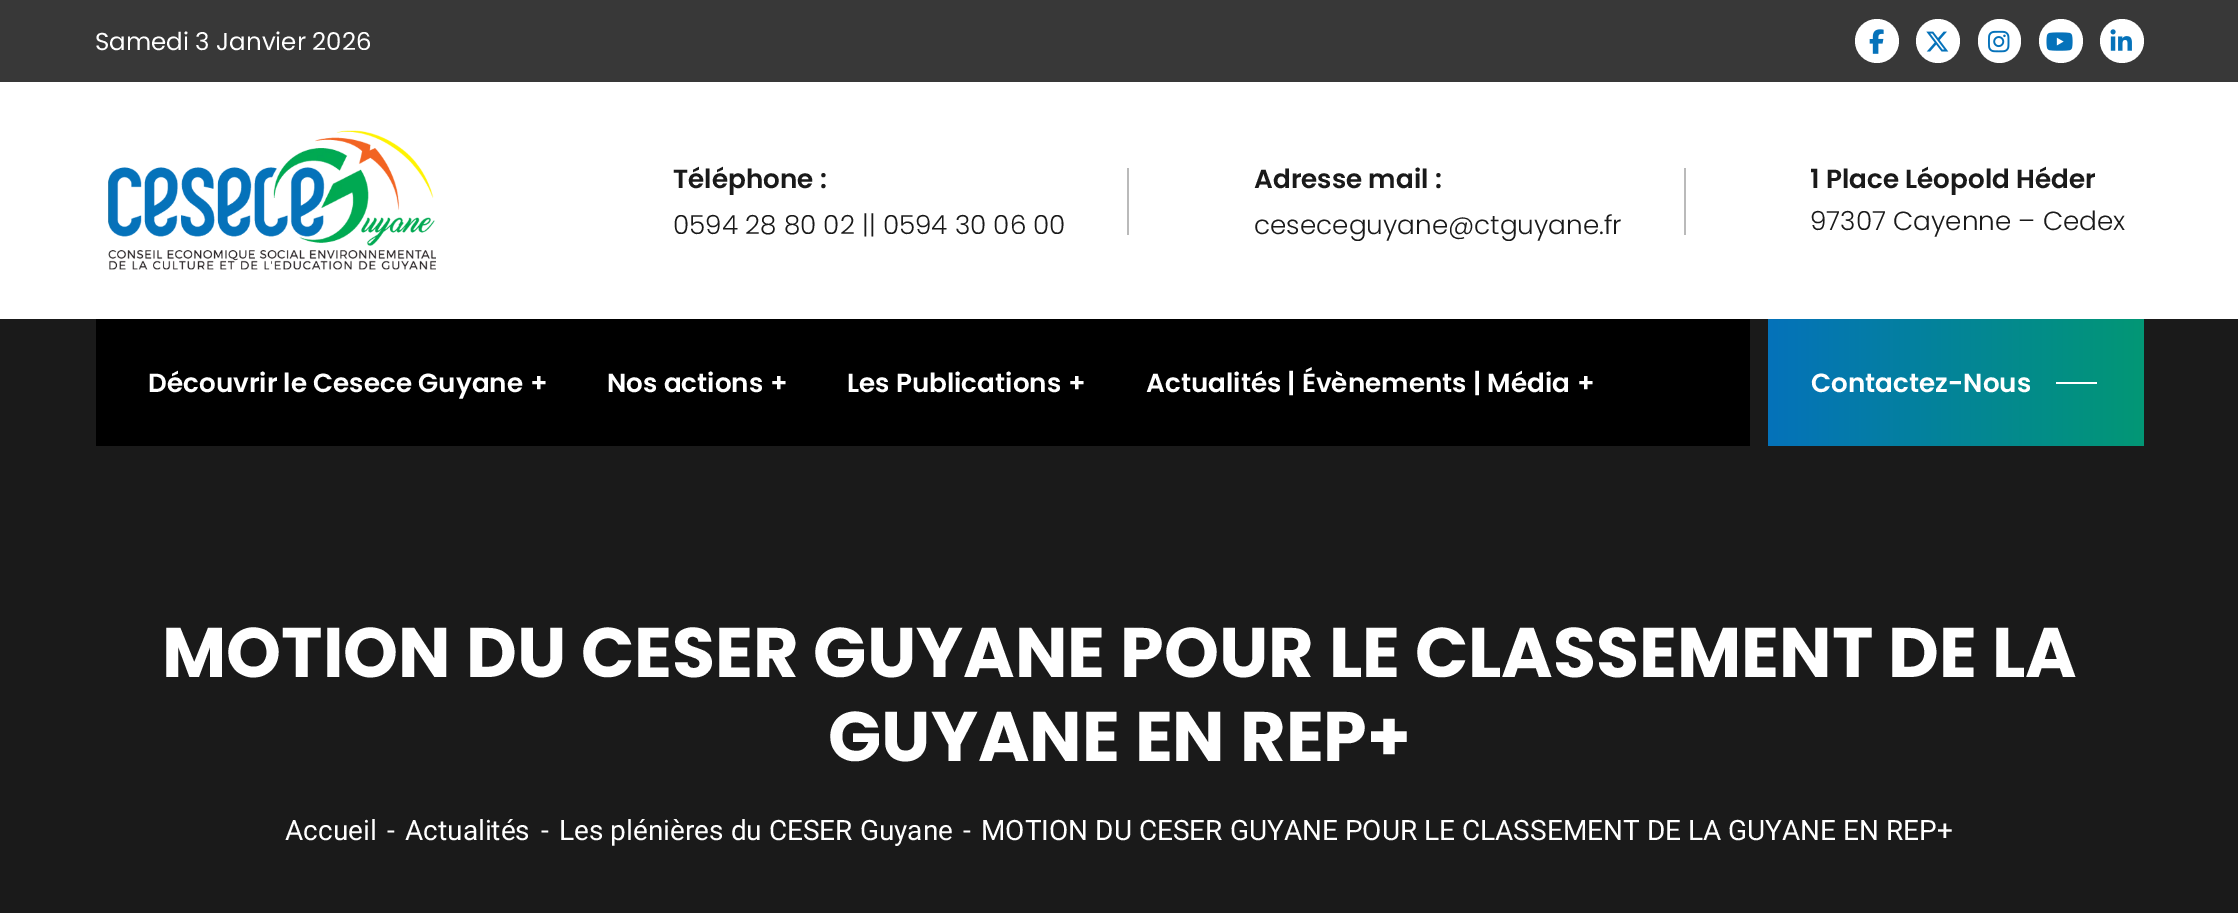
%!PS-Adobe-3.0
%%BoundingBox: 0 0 2238 913
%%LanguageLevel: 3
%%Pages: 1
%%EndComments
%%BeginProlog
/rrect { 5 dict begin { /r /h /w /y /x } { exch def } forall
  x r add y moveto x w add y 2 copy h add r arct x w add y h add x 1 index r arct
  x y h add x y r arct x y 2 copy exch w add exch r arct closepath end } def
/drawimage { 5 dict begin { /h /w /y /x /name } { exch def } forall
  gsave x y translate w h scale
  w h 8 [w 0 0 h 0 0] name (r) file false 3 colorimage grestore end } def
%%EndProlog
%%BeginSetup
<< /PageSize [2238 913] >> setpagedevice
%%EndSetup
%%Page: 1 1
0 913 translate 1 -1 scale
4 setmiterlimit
1 setgray
0 0 2238 913 rectfill
0.22 setgray
0 0 2238 82 rectfill
1 setgray
newpath 1877 41 22 0 360 arc closepath fill
(images/1.raw) 1869 29 15 25 drawimage
newpath 1938 41 22 0 360 arc closepath fill
(images/2.raw) 1926 31 23 21 drawimage
1978 19 43 44 21.5 rrect fill
(images/3.raw) 1988 30 22 23 drawimage
newpath 2061 41 22 0 360 arc closepath fill
(images/4.raw) 2046 32 27 19 drawimage
newpath 2122 41 22 0 360 arc closepath fill
(images/5.raw) 2110 29 22 22 drawimage
(images/6.raw) 108 130 328 140 drawimage
0.729 setgray
1127 168 2 67 rectfill
1684 168 2 67 rectfill
0.102 setgray
0 319 2238 594 rectfill
0 setgray
96 319 1654 127 rectfill
gsave newpath 1768 319 moveto 2144 319 lineto 2144 446 lineto 1768 446 lineto closepath clip newpath
<< /ShadingType 2 /ColorSpace /DeviceRGB /Coords [1768 382 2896 382] /Extend [true true] /Function << /FunctionType 3 /Domain [0 1] /Functions [<< /FunctionType 2 /Domain [0 1] /C0 [0.02 0.447 0.729] /C1 [0 0.663 0.322] /N 1 >> << /FunctionType 2 /Domain [0 1] /C0 [0 0.663 0.322] /C1 [0.02 0.447 0.729] /N 1 >>] /Bounds [0.5] /Encode [0 1 0 1] >> >> shfill grestore
1 setgray
2056 382 41 2 rectfill
/Poppins-Regular [24.5 0 0 -24.5 0 0] selectfont
95 50 moveto (Samedi 3 Janvier 2026) show
/Poppins-SemiBold [26.25 0 0 -26.25 0 0] selectfont
0.102 setgray
673 188 moveto (Téléphone :) show
/Poppins-Light [26.25 0 0 -26.25 0 0] selectfont
673 234 moveto (0594 28 80 02 || 0594 30 06 00) show
/Poppins-SemiBold [26.25 0 0 -26.25 0 0] selectfont
1254 188 moveto (Adresse mail :) show
/Poppins-Light [26.25 0 0 -26.25 0 0] selectfont
1254 234 moveto (ceseceguyane@ctguyane.fr) show
/Poppins-SemiBold [26.25 0 0 -26.25 0 0] selectfont
1810 188 moveto (1 Place Léopold Héder) show
/Poppins-Light [26.25 0 0 -26.25 0 0] selectfont
1810 230 moveto (97307 Cayenne – Cedex) show
/Poppins-SemiBold [26.25 0 0 -26.25 0 0] selectfont
1 setgray
148 392 moveto (Découvrir le Cesece Guyane) show
530 392 moveto (+) show
607 392 moveto (Nos actions) show
770 392 moveto (+) show
847 392 moveto (Les Publications) show
1068 392 moveto (+) show
1146 392 moveto (Actualités | Évènements | Média) show
1577 392 moveto (+) show
1811 392 moveto (Contactez-Nous) show
/Poppins-Bold [70 0 0 -70 0 0] selectfont
162 677 moveto (MOTION DU CESER GUYANE POUR LE CLASSEMENT DE LA) show
828 761 moveto (GUYANE EN REP+) show
/Roboto-Regular [28 0 0 -28 0 0] selectfont
285 840 moveto (Accueil) show
387 840 moveto (-) show
405 840 moveto (Actualités) show
541 840 moveto (-) show
559 840 moveto (Les plénières du CESER Guyane) show
963 840 moveto (-) show
981 840 moveto (MOTION DU CESER GUYANE POUR LE CLASSEMENT DE LA GUYANE EN REP+) show
showpage
%%EOF
